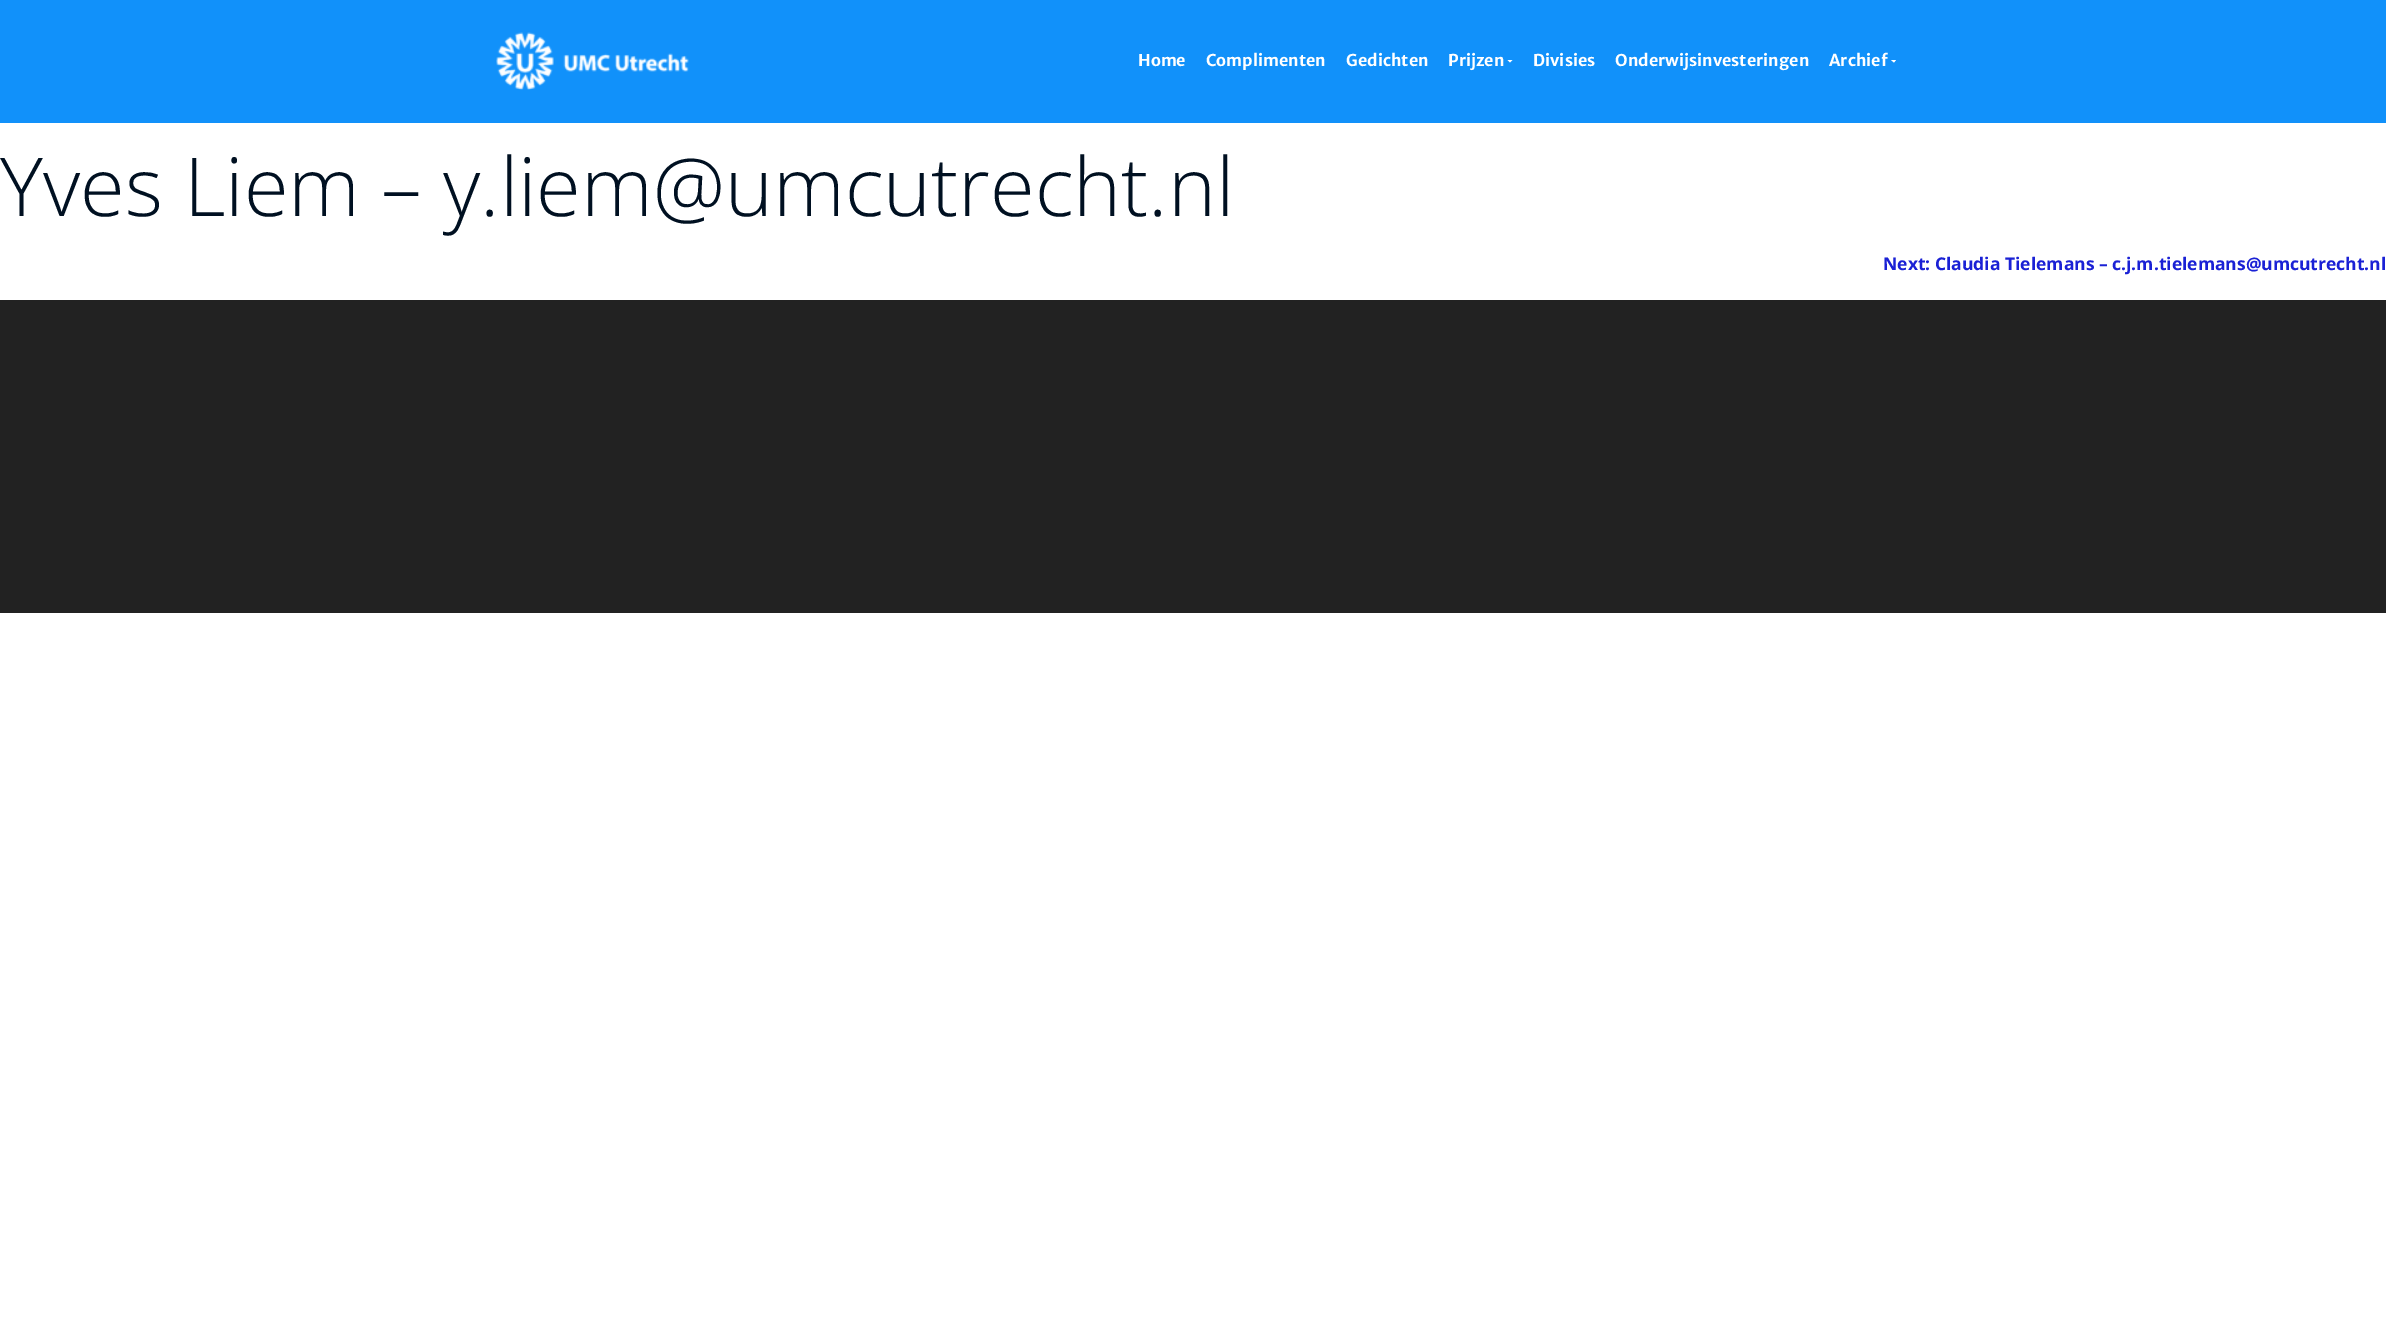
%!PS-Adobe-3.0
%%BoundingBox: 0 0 2386 1331
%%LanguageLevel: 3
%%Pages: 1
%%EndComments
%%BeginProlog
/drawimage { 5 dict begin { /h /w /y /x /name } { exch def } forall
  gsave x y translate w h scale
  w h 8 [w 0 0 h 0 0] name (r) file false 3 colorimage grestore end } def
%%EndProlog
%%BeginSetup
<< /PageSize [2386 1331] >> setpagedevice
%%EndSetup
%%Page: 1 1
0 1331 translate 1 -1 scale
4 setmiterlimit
1 setgray
0 0 2386 1331 rectfill
0.067 0.569 0.98 setrgbcolor
0 0 2386 123 rectfill
(images/1.raw) 496 32 193 58 drawimage
1 setgray
newpath 1507.5 60 moveto 1512.5 60 lineto 1510 62.5 lineto closepath fill
newpath 1891 60 moveto 1896 60 lineto 1894 62.5 lineto closepath fill
0.133 setgray
0 300 2386 313 rectfill
/MerriweatherSans-Bold [16.25 0 0 -16.25 0 0] selectfont
1 setgray
1138 66 moveto (Home) show
1206 66 moveto (Complimenten) show
1346 66 moveto (Gedichten) show
1448 66 moveto (Prijzen) show
1533 66 moveto (Divisies) show
1615 66 moveto (Onderwijsinvesteringen) show
1829 66 moveto (Archief) show
/OpenSans-Light [81.25 0 0 -81.25 0 0] selectfont
0 0.063 0.129 setrgbcolor
0 216 moveto (Yves Liem – y.liem@umcutrecht.nl) show
/OpenSans-Bold [17.5 0 0 -17.5 0 0] selectfont
0.102 0.129 0.835 setrgbcolor
1883 270 moveto (Next: Claudia Tielemans – c.j.m.tielemans@umcutrecht.nl) show
showpage
%%EOF
